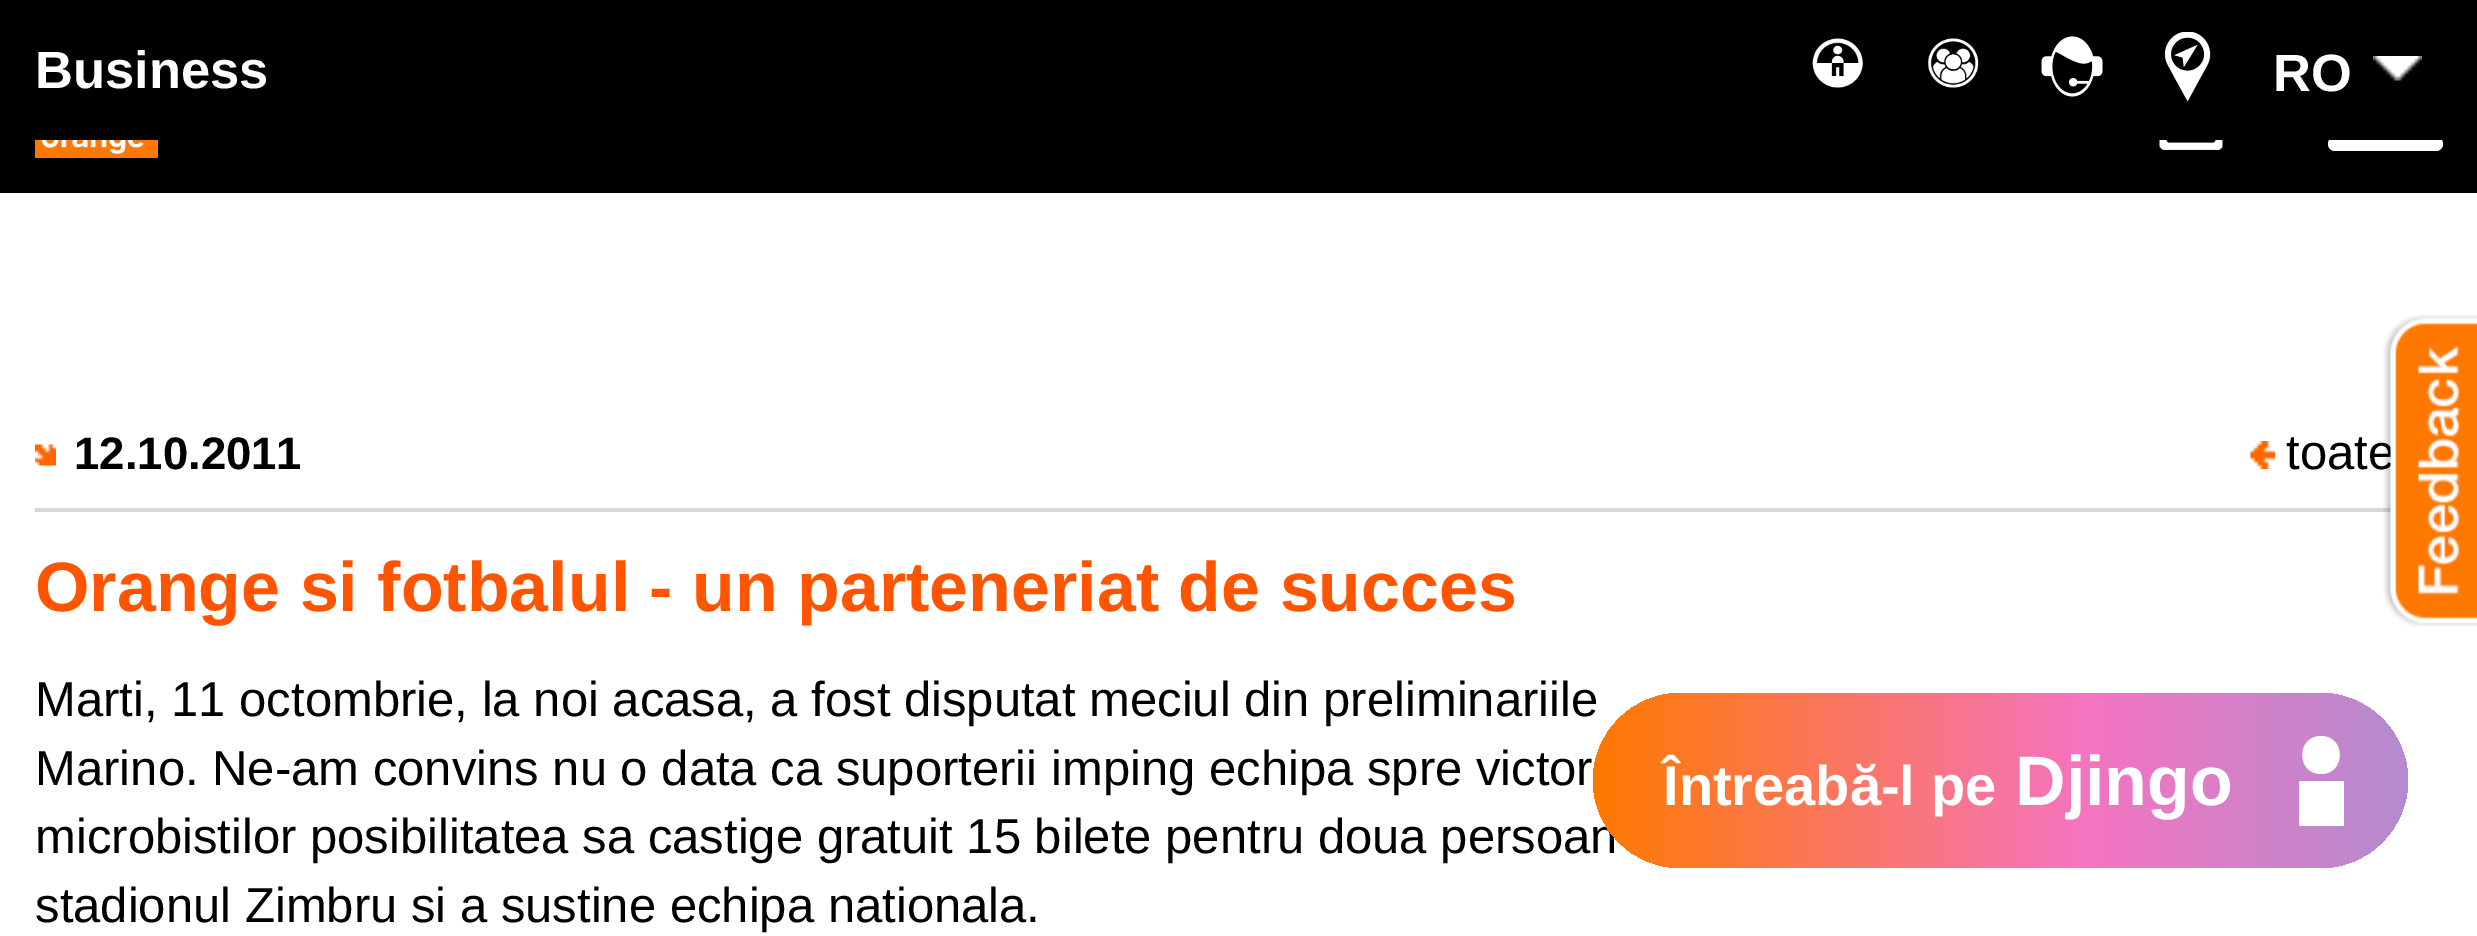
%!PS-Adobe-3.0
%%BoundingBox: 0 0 2477 936
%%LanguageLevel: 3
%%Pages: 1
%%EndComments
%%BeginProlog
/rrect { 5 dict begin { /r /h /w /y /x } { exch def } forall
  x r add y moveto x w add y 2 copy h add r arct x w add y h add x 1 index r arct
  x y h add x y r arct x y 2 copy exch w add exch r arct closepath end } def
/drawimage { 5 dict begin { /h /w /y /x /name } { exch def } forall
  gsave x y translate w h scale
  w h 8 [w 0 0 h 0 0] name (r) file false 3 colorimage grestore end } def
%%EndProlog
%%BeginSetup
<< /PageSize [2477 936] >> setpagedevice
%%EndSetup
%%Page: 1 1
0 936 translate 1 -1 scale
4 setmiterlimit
1 setgray
0 0 2477 936 rectfill
0 setgray
0 140 2477 53 rectfill
1 setgray
2328 137 115 14 7 rrect fill
0 setgray
0 0 2477 140 rectfill
(images/1.raw) 1812 38 51 50 drawimage
(images/2.raw) 1927 38 52 50 drawimage
(images/3.raw) 2041 36 62 61 drawimage
(images/4.raw) 2164 32 47 70 drawimage
(images/5.raw) 2373 56 49 25 drawimage
(images/6.raw) 35 140 123 18 drawimage
(images/7.raw) 2159 140 64 10 drawimage
(images/8.raw) 35 444 21 22 drawimage
0.843 setgray
35 508 2363 4 rectfill
(images/9.raw) 2250 441 25 28 drawimage
/LiberationSans-Bold [52.5 0 0 -52.5 0 0] selectfont
1 setgray
35 88 moveto (Business) show
2273 91 moveto (RO) show
/LiberationSans-Bold [45.5 0 0 -45.5 0 0] selectfont
0 setgray
74 469 moveto (12.10.2011) show
/LiberationSans-Regular [49 0 0 -49 0 0] selectfont
2286 469 moveto (toate) show
/LiberationSans-Bold [70 0 0 -70 0 0] selectfont
1 0.333 0 setrgbcolor
35 611 moveto (Orange si fotbalul - un parteneriat de succes) show
/LiberationSans-Regular [49 0 0 -49 0 0] selectfont
0 setgray
35 716 moveto (Marti, 11 octombrie, la noi acasa, a fost disputat meciul din preliminariile) show
35 785 moveto (Marino. Ne-am convins nu o data ca suporterii imping echipa spre victor) show
35 853 moveto (microbistilor posibilitatea sa castige gratuit 15 bilete pentru doua persoan) show
35 922 moveto (stadionul Zimbru si a sustine echipa nationala.) show
(images/10.raw) 2383 315 94 312 drawimage
gsave 1593 693 815 175 87.5 rrect clip newpath
<< /ShadingType 2 /ColorSpace /DeviceRGB /Coords [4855 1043 1593 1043] /Extend [true true] /Function << /FunctionType 3 /Domain [0 1] /Functions [<< /FunctionType 2 /Domain [0 1] /C0 [1 0.475 0] /C1 [0.945 0.431 0] /N 1 >> << /FunctionType 2 /Domain [0 1] /C0 [0.945 0.431 0] /C1 [0.318 0.678 0.898] /N 1 >> << /FunctionType 2 /Domain [0 1] /C0 [0.318 0.678 0.898] /C1 [0.318 0.678 0.898] /N 1 >> << /FunctionType 2 /Domain [0 1] /C0 [0.318 0.678 0.898] /C1 [0.961 0.455 0.753] /N 1 >> << /FunctionType 2 /Domain [0 1] /C0 [0.961 0.455 0.753] /C1 [1 0.475 0] /N 1 >>] /Bounds [0.15 0.4 0.6 0.85] /Encode [0 1 0 1 0 1 0 1 0 1] >> >> shfill grestore
/LiberationSans-Bold [56 0 0 -56 0 0] selectfont
1 setgray
1663 805 moveto (Întreabă-l pe) show
/LiberationSans-Bold [70 0 0 -70 0 0] selectfont
2015 805 moveto (Djingo) show
newpath 2321 736 moveto 2346 736 2346 774 2321 774 curveto 2296 774 2296 736 2321 736 curveto closepath 2299 781 moveto 2344 781 lineto 2344 826 lineto 2299 826 lineto closepath eofill
showpage
%%EOF
